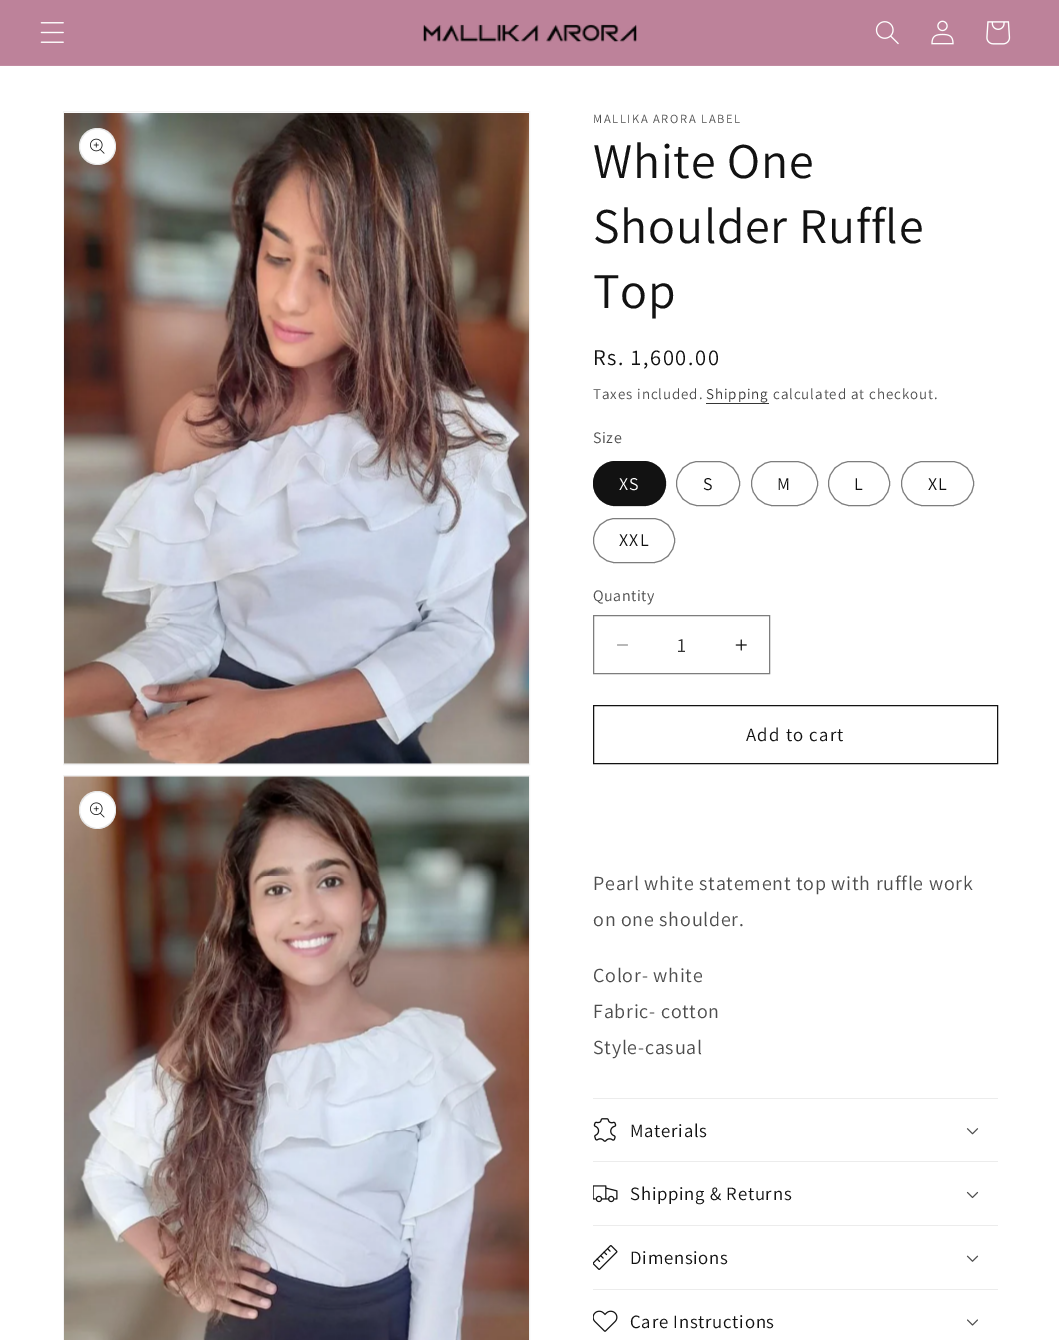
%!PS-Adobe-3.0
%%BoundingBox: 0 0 1059 1340
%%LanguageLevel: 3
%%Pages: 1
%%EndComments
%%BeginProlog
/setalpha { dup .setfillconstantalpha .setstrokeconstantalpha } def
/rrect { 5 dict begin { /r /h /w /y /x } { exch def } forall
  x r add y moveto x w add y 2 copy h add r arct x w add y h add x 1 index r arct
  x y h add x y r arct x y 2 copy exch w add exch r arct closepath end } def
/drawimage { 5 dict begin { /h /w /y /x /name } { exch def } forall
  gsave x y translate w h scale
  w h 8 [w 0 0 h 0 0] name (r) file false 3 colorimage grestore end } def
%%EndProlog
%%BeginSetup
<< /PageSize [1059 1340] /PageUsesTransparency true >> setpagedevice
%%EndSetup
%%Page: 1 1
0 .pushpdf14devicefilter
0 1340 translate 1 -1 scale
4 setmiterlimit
1 setgray
0 0 1059 1340 rectfill
0.741 0.51 0.604 setrgbcolor
0 0 1059 65 rectfill
0.761 0.549 0.635 setrgbcolor
0 65 1059 1 rectfill
(images/1.raw) 40 22 24 21 drawimage
(images/2.raw) 423 24 214 18 drawimage
(images/3.raw) 875 21 24 24 drawimage
(images/4.raw) 931 20 23 25 drawimage
(images/5.raw) 986 21 25 24 drawimage
0.953 setgray
63.5 111.5 466 653 rectstroke
(images/6.raw) 64 113 465 652 drawimage
1 setgray
newpath 97.5 146.5 18.5 0 360 arc closepath fill
0.1 setalpha
0.071 setgray
newpath 97.5 146.5 18 0 360 arc closepath stroke
1 setalpha
(images/7.raw) 90 138 15 16 drawimage
0.953 setgray
63.5 775.5 466 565 rectstroke
(images/8.raw) 64 775 465 565 drawimage
1 setgray
79 791 37 38 18.5 rrect fill
0.1 setalpha
0.071 setgray
79.5 791.5 36 37 18 rrect stroke
1 setalpha
(images/9.raw) 90 802 15 16 drawimage
0.212 setgray
706 403 63 1 rectfill
0.071 setgray
593 461 73 45 22.5 rrect fill
0.55 setalpha
593.5 461.5 72 44 22 rrect stroke
1 setalpha
0.49 setgray
676.5 461.5 63 44 22 rrect stroke
751.5 461.5 66 44 22 rrect stroke
828.5 461.5 61 44 22 rrect stroke
901.5 461.5 72 44 22 rrect stroke
593.5 518.5 81 44 22 rrect stroke
(images/10.raw) 617 644 11 2 drawimage
(images/11.raw) 735 639 12 12 drawimage
593.5 615.5 176 58 rectstroke
0.071 setgray
593.5 705.5 404 58 rectstroke
0.925 setgray
593 1098 405 1 rectfill
593 1161 405 1 rectfill
(images/12.raw) 593 1118 24 24 drawimage
(images/13.raw) 966 1128 13 7 drawimage
593 1225 405 1 rectfill
(images/14.raw) 593 1185 25 18 drawimage
(images/15.raw) 966 1191 13 8 drawimage
593 1289 405 1 rectfill
(images/16.raw) 593 1245 25 25 drawimage
(images/17.raw) 966 1255 13 7 drawimage
(images/18.raw) 593 1310 25 22 drawimage
(images/19.raw) 967 1319 11 7 drawimage
/Assistant-Regular [12.5 0 0 -12.5 0 0] selectfont
0.302 setgray
593 123 moveto 1.6 0 (MALLIKA ARORA LABEL) ashow
/Assistant-Regular [50 0 0 -50 0 0] selectfont
0.071 setgray
593 178 moveto 0.75 0 (White One) ashow
593 243 moveto 0.75 0 (Shoulder Ruffle) ashow
593 308 moveto 0.75 0 (Top) ashow
/Assistant-Regular [22.5 0 0 -22.5 0 0] selectfont
593 365 moveto 1.6 0 (Rs. 1,600.00) ashow
/Assistant-Regular [15 0 0 -15 0 0] selectfont
0.302 setgray
593 399 moveto 0.9 0 (Taxes included.) ashow
0.212 setgray
706 399 moveto 0.9 0 (Shipping) ashow
0.302 setgray
773 399 moveto 0.9 0 (calculated at checkout.) ashow
/Assistant-Regular [16 0 0 -16 0 0] selectfont
593 443 moveto 0.5 0 (Size) ashow
/Assistant-Regular [18 0 0 -18 0 0] selectfont
1 setgray
619 490 moveto 1.25 0 (XS) ashow
0.071 setgray
703 490 moveto 1.25 0 (S) ashow
777 490 moveto 1.25 0 (M) ashow
854 490 moveto 1.25 0 (L) ashow
928 490 moveto 1.25 0 (XL) ashow
619 546 moveto 1.25 0 (XXL) ashow
/Assistant-Regular [16 0 0 -16 0 0] selectfont
0.302 setgray
593 601 moveto 0.5 0 (Quantity) ashow
/Assistant-Regular [20 0 0 -20 0 0] selectfont
0.212 setgray
677 652 moveto (1) show
/Assistant-Regular [18.75 0 0 -18.75 0 0] selectfont
0.071 setgray
746 741 moveto 1.25 0 (Add to cart) ashow
/Assistant-Regular [20 0 0 -20 0 0] selectfont
0.302 setgray
593 890 moveto 0.75 0 (Pearl white statement top with ruffle work) ashow
593 926 moveto 0.75 0 (on one shoulder.) ashow
593 982 moveto 0.75 0 (Color- white) ashow
593 1018 moveto 0.75 0 (Fabric- cotton) ashow
593 1054 moveto 0.75 0 (Style-casual) ashow
/Assistant-Regular [18.75 0 0 -18.75 0 0] selectfont
0.071 setgray
630 1137 moveto 0.75 0 (Materials) ashow
630 1200 moveto 0.75 0 (Shipping & Returns) ashow
630 1264 moveto 0.75 0 (Dimensions) ashow
630 1328 moveto 0.75 0 (Care Instructions) ashow
.poppdf14devicefilter showpage
%%EOF
